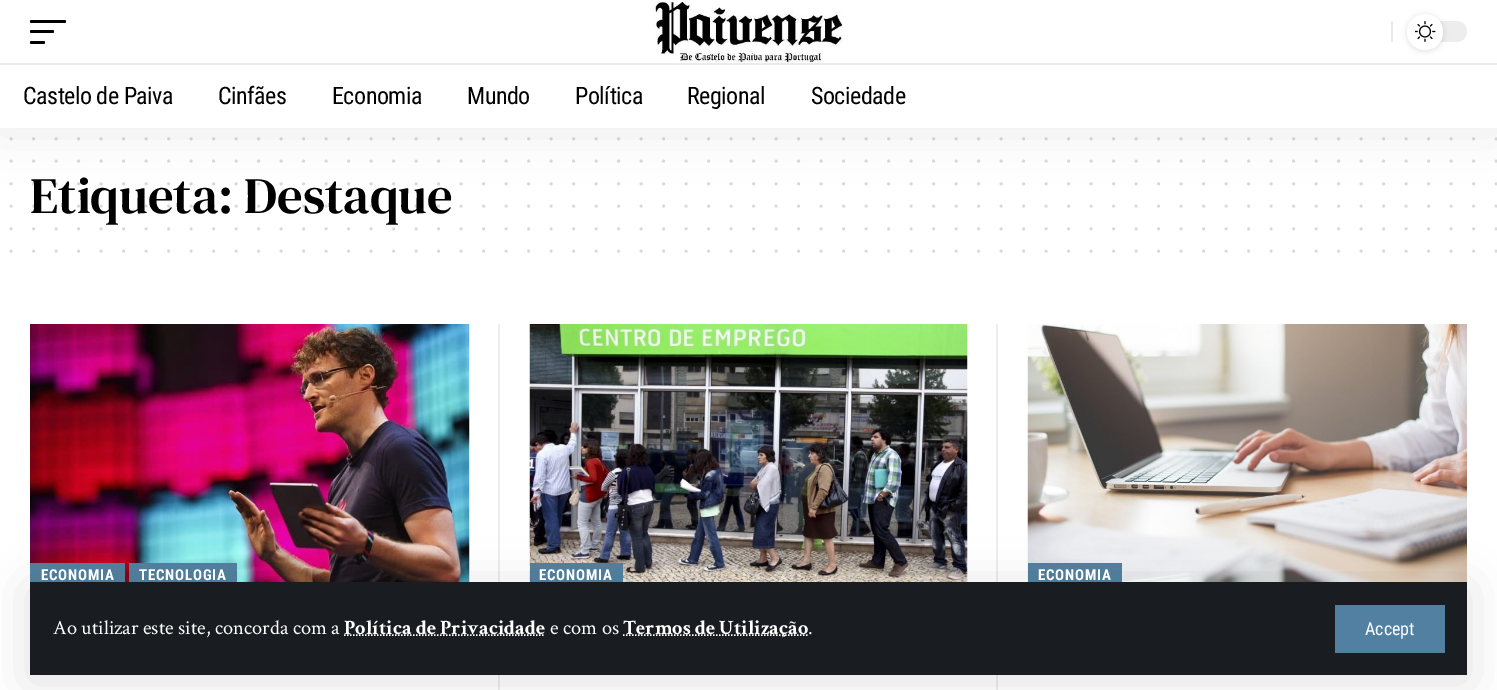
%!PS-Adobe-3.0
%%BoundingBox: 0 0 1497 690
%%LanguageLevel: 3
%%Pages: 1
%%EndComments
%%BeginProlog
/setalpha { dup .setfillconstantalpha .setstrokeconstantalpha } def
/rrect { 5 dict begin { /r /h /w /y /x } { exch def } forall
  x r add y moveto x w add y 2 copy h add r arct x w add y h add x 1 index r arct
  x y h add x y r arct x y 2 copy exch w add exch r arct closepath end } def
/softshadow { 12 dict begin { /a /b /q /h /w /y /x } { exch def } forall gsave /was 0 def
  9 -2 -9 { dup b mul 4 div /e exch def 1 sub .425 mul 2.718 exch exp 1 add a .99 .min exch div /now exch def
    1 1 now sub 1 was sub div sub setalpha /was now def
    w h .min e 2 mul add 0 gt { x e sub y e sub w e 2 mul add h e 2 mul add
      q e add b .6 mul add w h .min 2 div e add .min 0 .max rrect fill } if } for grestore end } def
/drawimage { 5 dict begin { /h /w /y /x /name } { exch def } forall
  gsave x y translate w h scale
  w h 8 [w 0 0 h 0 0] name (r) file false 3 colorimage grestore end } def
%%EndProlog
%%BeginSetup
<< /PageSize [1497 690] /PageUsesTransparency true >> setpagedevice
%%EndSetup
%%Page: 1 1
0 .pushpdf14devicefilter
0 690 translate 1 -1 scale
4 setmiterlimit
1 setgray
0 0 1497 690 rectfill
(images/3.raw) 30 324 440 258 drawimage
0.322 0.502 0.627 setrgbcolor
30 563 95 19 rectfill
129 563 108 19 rectfill
0.929 setgray
498 324 2 366 rectfill
(images/4.raw) 529 324 439 258 drawimage
0.322 0.502 0.627 setrgbcolor
530 563 93 19 rectfill
0.929 setgray
996 324 2 366 rectfill
(images/5.raw) 1027 324 440 258 drawimage
0.322 0.502 0.627 setrgbcolor
1028 563 94 19 rectfill
0 setgray
30 588 1437 93 0 22.5 0.12 softshadow
0.098 0.11 0.125 setrgbcolor
30 582 1437 93 rectfill
1 setgray
1.5 setlinewidth
[1.5 1.5] 0 setdash
newpath 344 635 moveto 545 635 lineto stroke
newpath 623 635 moveto 808 635 lineto stroke
0.322 0.502 0.627 setrgbcolor
1335 605 110 48 rectfill
0.851 setgray
3 setlinewidth
1 setlinecap
[0 22.5] 0 setdash
newpath 11.2 138.8 moveto 1496.6 138.8 lineto stroke
newpath 11.2 161.2 moveto 1496.6 161.2 lineto stroke
newpath 11.2 228.8 moveto 1496.6 228.8 lineto stroke
newpath 11.2 251.2 moveto 1496.6 251.2 lineto stroke
/CrimsonText-Regular [20.4 0 0 -20.4 0 0] selectfont
1 setgray
53 634 moveto (Ao utilizar este site, concorda com a) show
/CrimsonText-Bold [20.4 0 0 -20.4 0 0] selectfont
344 634 moveto (Política de Privacidade) show
/CrimsonText-Regular [20.4 0 0 -20.4 0 0] selectfont
550 634 moveto (e com os) show
/CrimsonText-Bold [20.4 0 0 -20.4 0 0] selectfont
623 634 moveto (Termos de Utilização) show
/CrimsonText-Regular [20.4 0 0 -20.4 0 0] selectfont
808 634 moveto (.) show
/RobotoCondensed-Regular [18 0 0 -18 0 0] selectfont
1365 635 moveto (Accept) show
/DMSerifText-Regular [51 0 0 -51 0 0] selectfont
0 setgray
30 213 moveto (Etiqueta: Destaque) show
0.15 setalpha
newpath 11.2 183.8 moveto 1496.6 183.8 lineto stroke
1 setalpha
0 6 1497 128 0 22.5 0.07 softshadow
1 setgray
0 0 1497 128 rectfill
/RobotoCondensed-Regular [24 0 0 -24 0 0] selectfont
0 setgray
811 104 moveto -0.5 0 (Sociedade) ashow
687 104 moveto -0.5 0 (Regional) ashow
575 104 moveto -0.5 0 (Política) ashow
467 104 moveto -0.5 0 (Mundo) ashow
332 104 moveto -0.5 0 (Economia) ashow
218 104 moveto -0.5 0 (Cinfães) ashow
23 104 moveto -0.5 0 (Castelo de Paiva) ashow
0.918 setgray
0 63 1497 2 rectfill
0.929 setgray
1407 21 60 21 10.5 rrect fill
0 setgray
1407 15 36 36 18 3 0.12 softshadow
1 setgray
newpath 1425 32 18 0 360 arc closepath fill
(images/2.raw) 1415 21 21 21 drawimage
0.918 setgray
1391 21 2 21 rectfill
0 setgray
30 41 15 3 1.5 rrect fill
30 30 24 3 1.5 rrect fill
30 20 36 3 1.5 rrect fill
(images/1.raw) 653 0 190 63 drawimage
0.15 setalpha
newpath 11.2 206.2 moveto 1496.6 206.2 lineto stroke
/RobotoCondensed-Bold [15 0 0 -15 0 0] selectfont
1 setalpha
1 setgray
41 580 moveto 0.75 0 (ECONOMIA) ashow
139 580 moveto 0.75 0 (TECNOLOGIA) ashow
539 580 moveto 0.75 0 (ECONOMIA) ashow
1038 580 moveto 0.75 0 (ECONOMIA) ashow
.poppdf14devicefilter showpage
%%EOF
